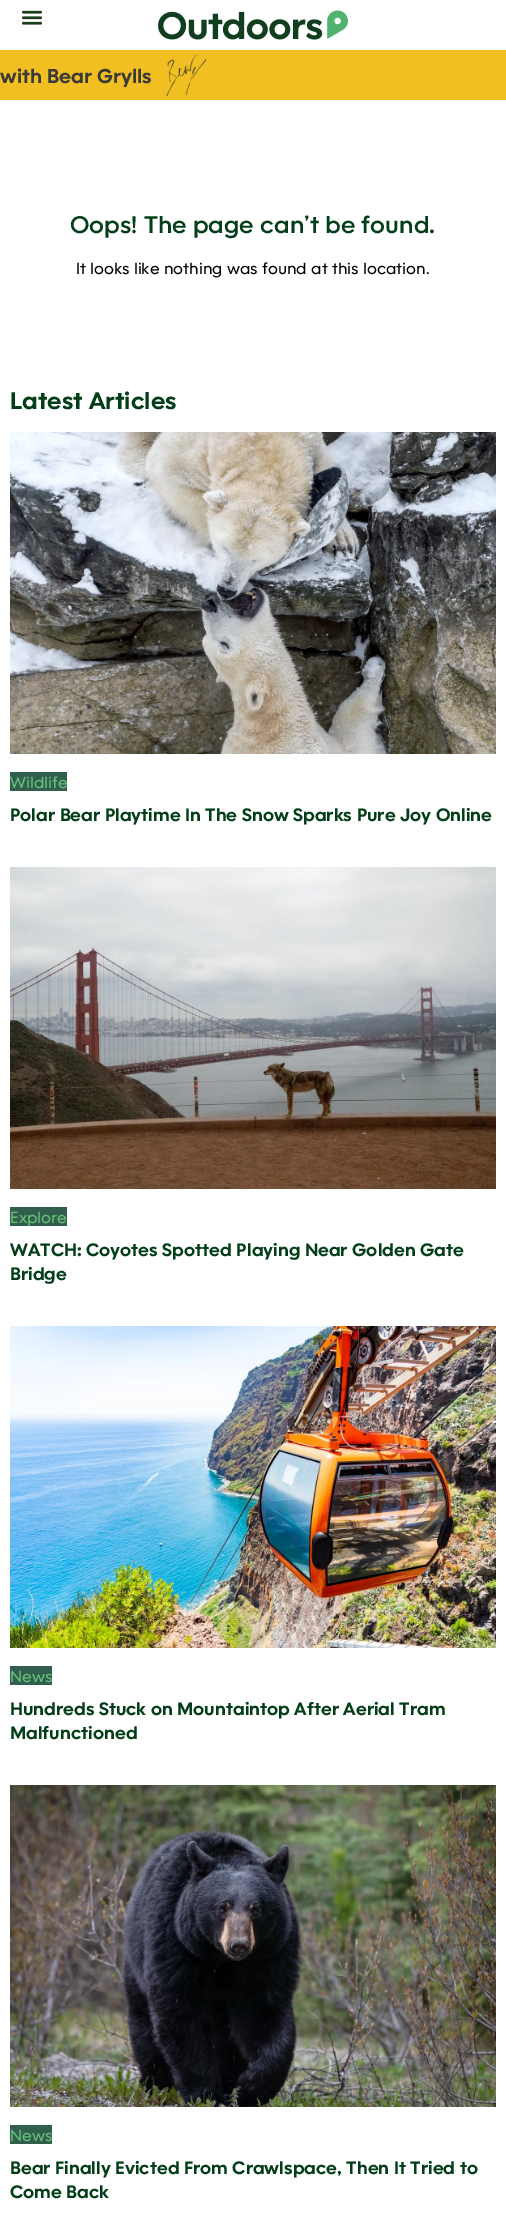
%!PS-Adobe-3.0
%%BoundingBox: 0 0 506 2239
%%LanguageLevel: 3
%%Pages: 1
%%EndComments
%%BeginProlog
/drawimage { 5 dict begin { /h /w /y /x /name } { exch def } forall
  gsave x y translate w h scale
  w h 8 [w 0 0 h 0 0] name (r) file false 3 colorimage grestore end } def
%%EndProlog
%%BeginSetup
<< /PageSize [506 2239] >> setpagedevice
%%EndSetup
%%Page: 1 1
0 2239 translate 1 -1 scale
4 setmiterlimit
1 setgray
0 0 506 2239 rectfill
(images/1.raw) 21 10 22 15 drawimage
(images/2.raw) 158 10 190 30 drawimage
0.949 0.749 0.133 setrgbcolor
0 50 506 50 rectfill
(images/3.raw) 166 54 41 43 drawimage
(images/4.raw) 10 432 486 322 drawimage
0.192 0.369 0.302 setrgbcolor
10 772 57 19 rectfill
(images/5.raw) 10 867 486 322 drawimage
10 1207 57 19 rectfill
(images/6.raw) 10 1326 486 322 drawimage
10 1666 42 19 rectfill
(images/7.raw) 10 1785 486 322 drawimage
10 2125 42 19 rectfill
/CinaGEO-SemiBold [20 0 0 -20 0 0] selectfont
0.227 setgray
0 83 moveto (with Bear Grylls) show
/CinaGEO-Medium [24 0 0 -24 0 0] selectfont
0.008 0.243 0.09 setrgbcolor
70 233 moveto (Oops! The page can’t be found.) show
/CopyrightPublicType-Regular [16 0 0 -16 0 0] selectfont
0 setgray
76 274 moveto (It looks like nothing was found at this location.) show
/CinaGEO-SemiBold [24 0 0 -24 0 0] selectfont
0.008 0.243 0.09 setrgbcolor
10 409 moveto (Latest Articles) show
/CopyrightPublicType-Regular [16 0 0 -16 0 0] selectfont
0.4 0.761 0.475 setrgbcolor
10 788 moveto (Wildlife) show
/CinaGEO-SemiBold [18 0 0 -18 0 0] selectfont
0.008 0.243 0.09 setrgbcolor
10 821 moveto (Polar Bear Playtime In The Snow Sparks Pure Joy Online) show
/CopyrightPublicType-Regular [16 0 0 -16 0 0] selectfont
0.4 0.761 0.475 setrgbcolor
10 1223 moveto (Explore) show
/CinaGEO-SemiBold [18 0 0 -18 0 0] selectfont
0.008 0.243 0.09 setrgbcolor
10 1256 moveto (WATCH: Coyotes Spotted Playing Near Golden Gate) show
10 1280 moveto (Bridge) show
/CopyrightPublicType-Regular [16 0 0 -16 0 0] selectfont
0.4 0.761 0.475 setrgbcolor
10 1682 moveto (News) show
/CinaGEO-SemiBold [18 0 0 -18 0 0] selectfont
0.008 0.243 0.09 setrgbcolor
10 1715 moveto (Hundreds Stuck on Mountaintop After Aerial Tram) show
10 1739 moveto (Malfunctioned) show
/CopyrightPublicType-Regular [16 0 0 -16 0 0] selectfont
0.4 0.761 0.475 setrgbcolor
10 2141 moveto (News) show
/CinaGEO-SemiBold [18 0 0 -18 0 0] selectfont
0.008 0.243 0.09 setrgbcolor
10 2174 moveto (Bear Finally Evicted From Crawlspace, Then It Tried to) show
10 2198 moveto (Come Back) show
showpage
%%EOF
